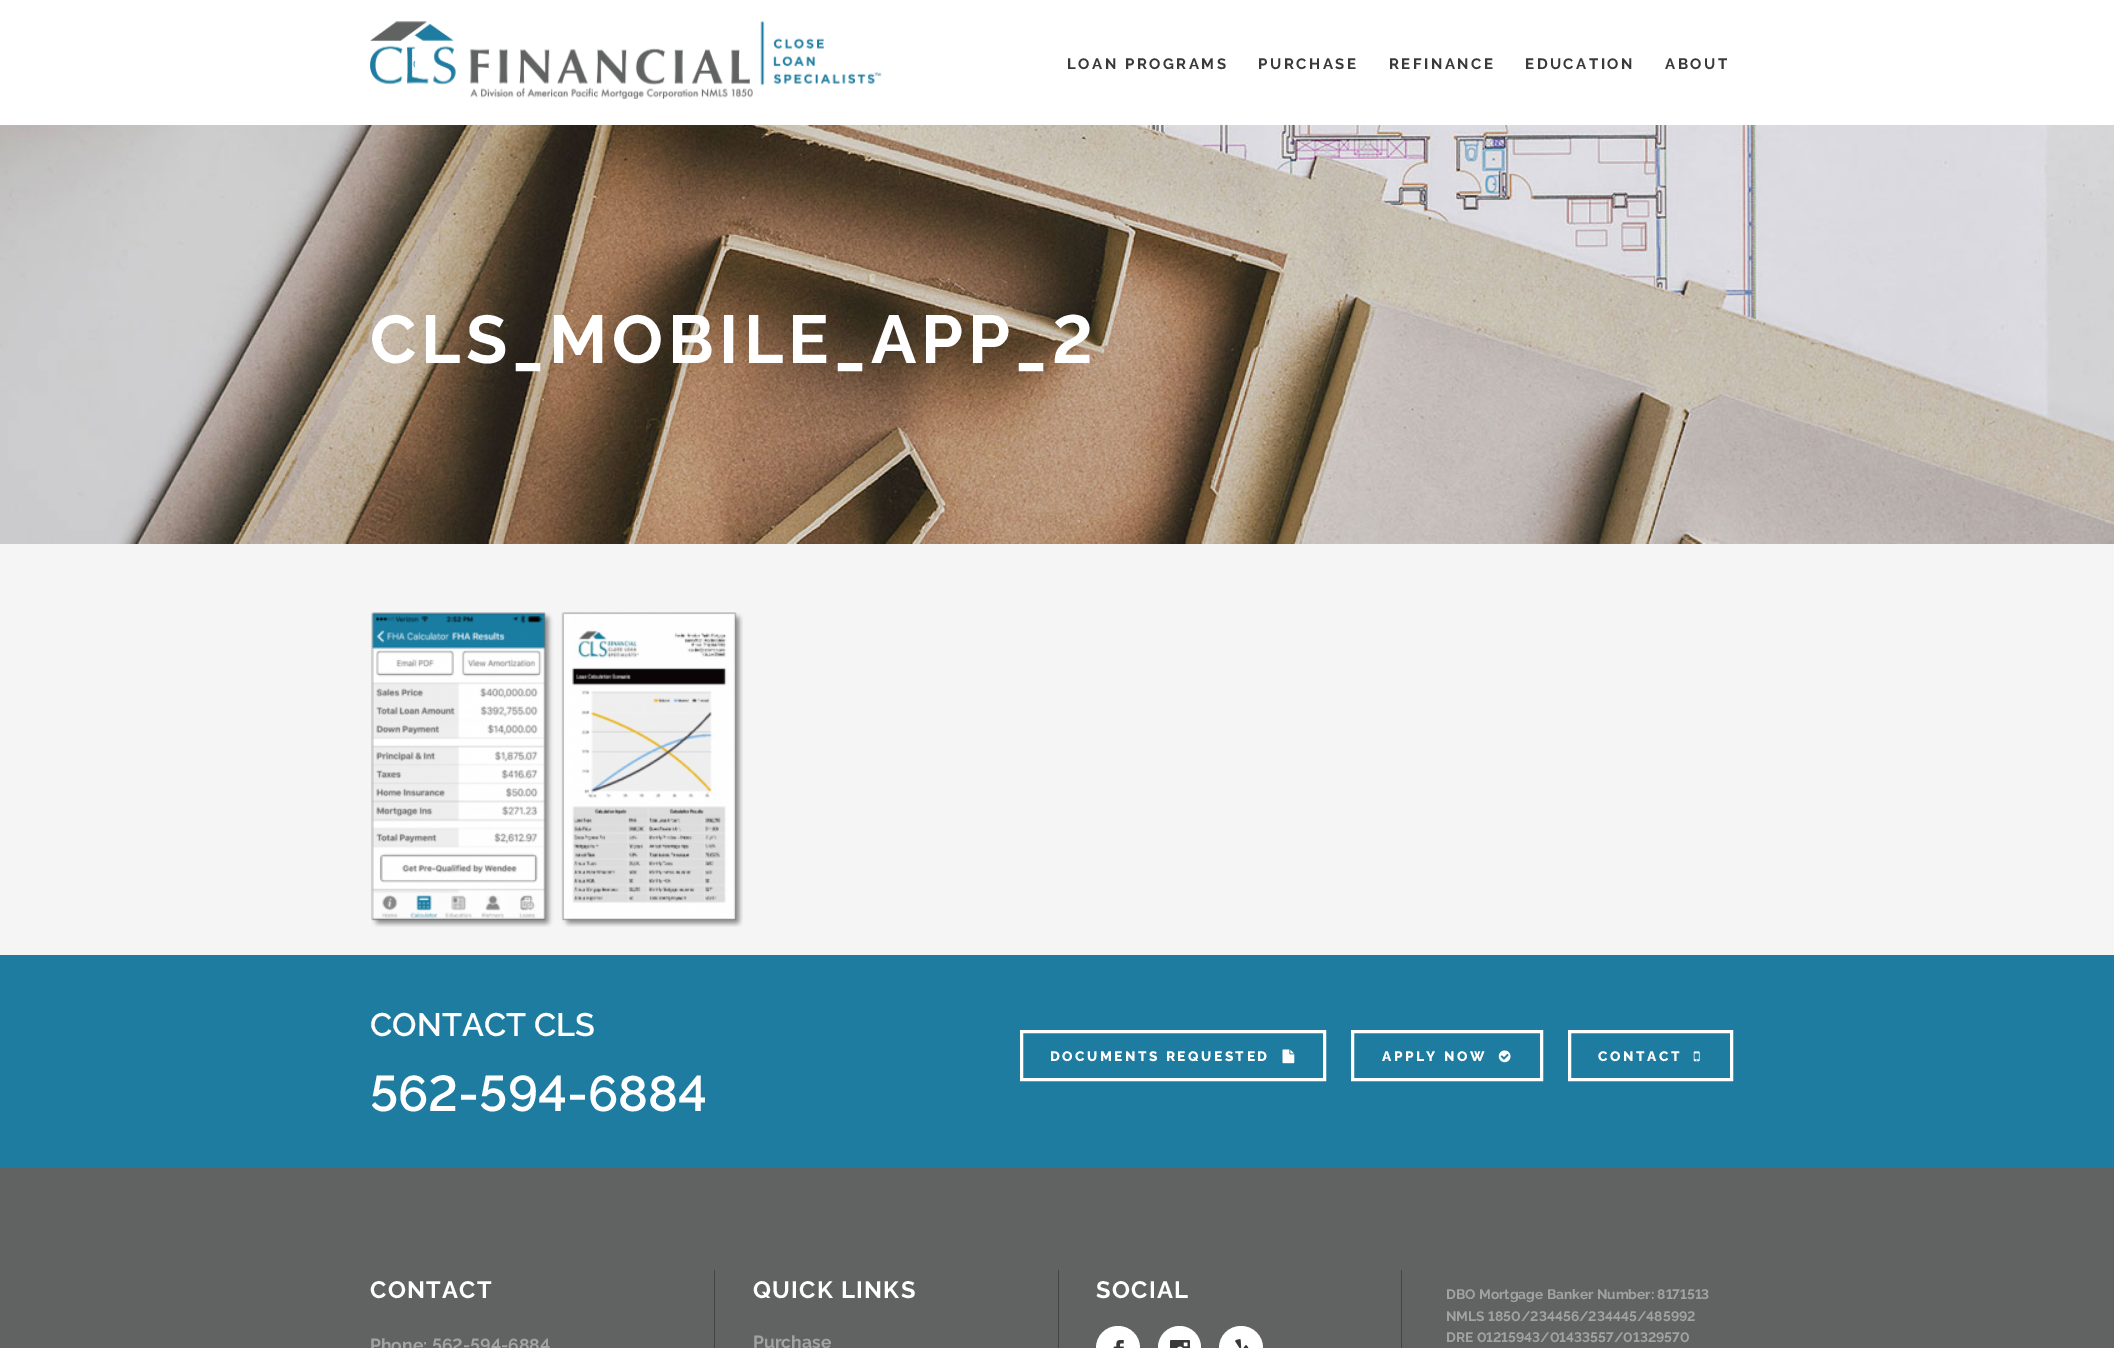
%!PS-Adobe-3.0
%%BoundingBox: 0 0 2114 1348
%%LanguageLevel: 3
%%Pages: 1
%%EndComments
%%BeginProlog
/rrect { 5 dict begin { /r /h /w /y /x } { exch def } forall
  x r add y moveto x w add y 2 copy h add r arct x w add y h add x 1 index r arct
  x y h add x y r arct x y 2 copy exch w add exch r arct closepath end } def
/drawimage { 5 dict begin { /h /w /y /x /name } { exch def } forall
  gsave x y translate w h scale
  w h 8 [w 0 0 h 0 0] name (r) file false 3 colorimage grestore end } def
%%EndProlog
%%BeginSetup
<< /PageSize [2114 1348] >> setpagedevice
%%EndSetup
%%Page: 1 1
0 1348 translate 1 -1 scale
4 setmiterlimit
0.961 setgray
0 0 2114 1348 rectfill
1 setgray
0 0 2114 125 rectfill
(images/1.raw) 370 21 512 78 drawimage
(images/2.raw) 0 125 2114 419 drawimage
(images/3.raw) 371 612 372 315 drawimage
0.118 0.486 0.627 setrgbcolor
0 955 2114 213 rectfill
1 setgray
3 setlinewidth
1021.5 1031.5 303 48 rectstroke
(images/4.raw) 1282 1049 13 15 drawimage
1352.5 1031.5 189 48 rectstroke
(images/5.raw) 1498 1050 13 13 drawimage
1569.5 1031.5 162 48 rectstroke
(images/6.raw) 1693 1051 7 11 drawimage
0.38 0.384 0.384 setrgbcolor
0 1168 2114 180 rectfill
0.267 setgray
714 1270 1 78 rectfill
1058 1270 1 78 rectfill
1 setgray
newpath 1118 1348 22 0 360 arc closepath fill
(images/7.raw) 1113 1340 11 8 drawimage
1158 1326 43 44 21.5 rrect fill
(images/8.raw) 1170 1340 20 8 drawimage
newpath 1241 1348 22 0 360 arc closepath fill
(images/9.raw) 1235 1339 14 9 drawimage
0.267 setgray
1401 1270 1 78 rectfill
/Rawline-Bold [15 0 0 -15 0 0] selectfont
0.224 setgray
1067 69 moveto 2.5 0 (LOAN PROGRAMS) ashow
1258 69 moveto 2.5 0 (PURCHASE) ashow
1389 69 moveto 2.5 0 (REFINANCE) ashow
1525 69 moveto 2.5 0 (EDUCATION) ashow
1665 69 moveto 2.5 0 (ABOUT) ashow
/Rawline-Bold [67.5 0 0 -67.5 0 0] selectfont
1 setgray
370 363 moveto 5 0 (CLS_MOBILE_APP_2) ashow
/Raleway-SemiBold [32.5 0 0 -32.5 0 0] selectfont
370 1036 moveto (CONTACT CLS) show
/Rawline-SemiBold [50 0 0 -50 0 0] selectfont
370 1111 moveto (562-594-6884) show
/Rawline-ExtraBold [13.75 0 0 -13.75 0 0] selectfont
1050 1061 moveto 2.5 0 (DOCUMENTS REQUESTED) ashow
1382 1061 moveto 2.5 0 (APPLY NOW) ashow
1598 1061 moveto 2.5 0 (CONTACT) ashow
/Rawline-Bold [23.75 0 0 -23.75 0 0] selectfont
370 1298 moveto 1.25 0 (CONTACT) ashow
/Rawline-Bold [17.5 0 0 -17.5 0 0] selectfont
0.635 setgray
370 1351 moveto (Phone: 562-594-6884) show
/Rawline-Bold [23.75 0 0 -23.75 0 0] selectfont
1 setgray
753 1298 moveto 1.25 0 (QUICK LINKS) ashow
/Rawline-Bold [17.5 0 0 -17.5 0 0] selectfont
0.635 setgray
753 1348 moveto (Purchase) show
/Rawline-Bold [23.75 0 0 -23.75 0 0] selectfont
1 setgray
1096 1298 moveto 1.25 0 (SOCIAL) ashow
/Rawline-Bold [13.75 0 0 -13.75 0 0] selectfont
0.635 setgray
1446 1299 moveto (DBO Mortgage Banker Number: 8171513) show
1446 1321 moveto (NMLS 1850/234456/234445/485992) show
1446 1342 moveto (DRE 01215943/01433557/01329570) show
showpage
%%EOF
